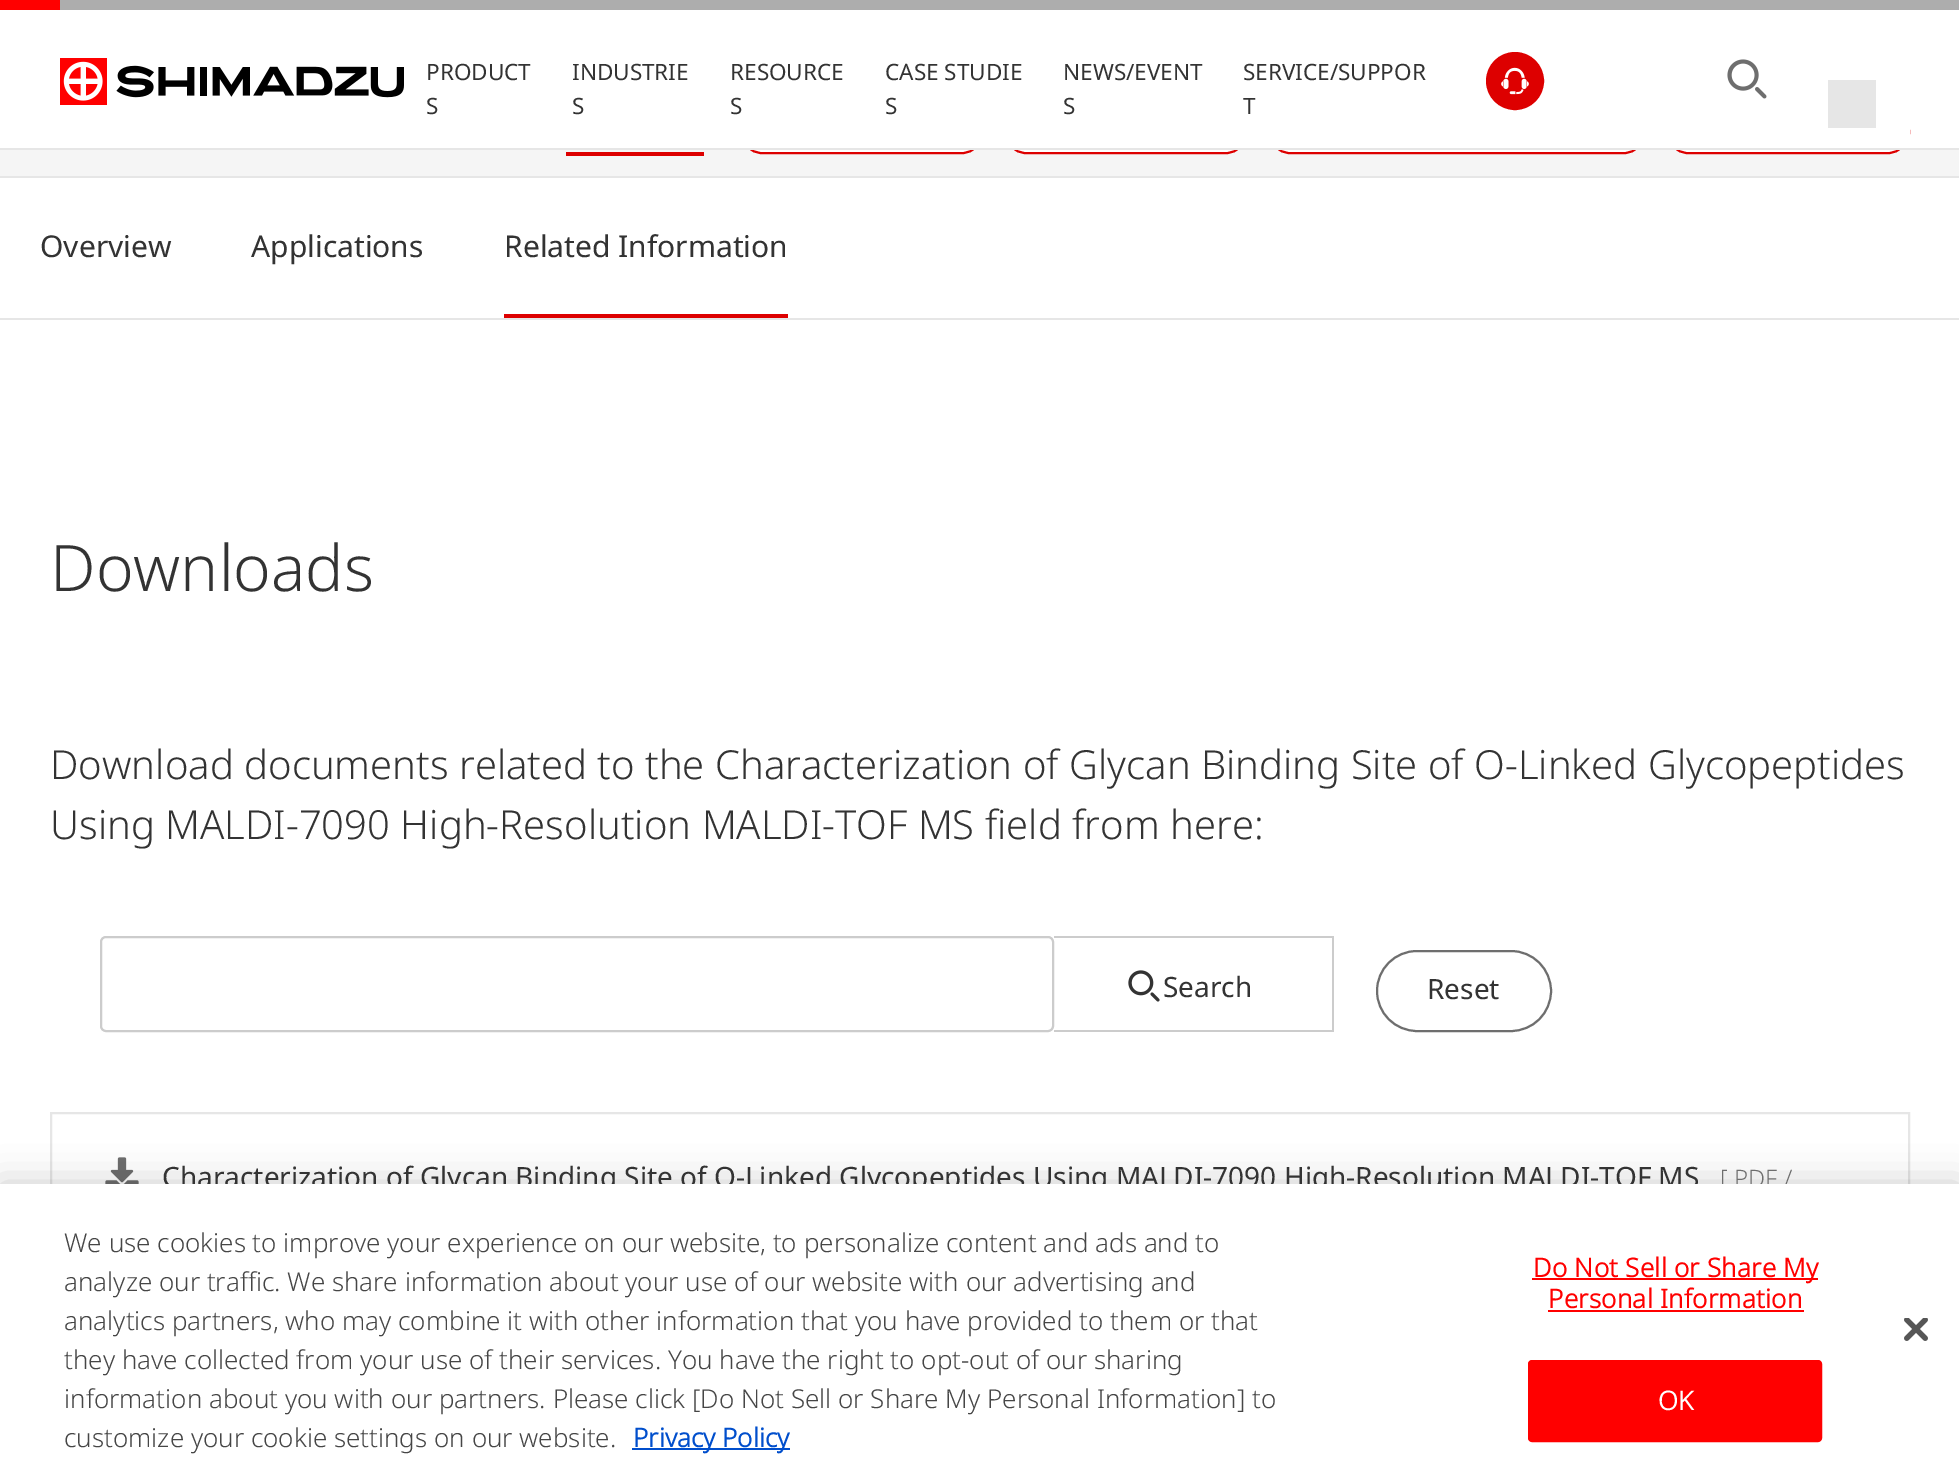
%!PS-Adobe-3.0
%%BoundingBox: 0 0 1959 1477
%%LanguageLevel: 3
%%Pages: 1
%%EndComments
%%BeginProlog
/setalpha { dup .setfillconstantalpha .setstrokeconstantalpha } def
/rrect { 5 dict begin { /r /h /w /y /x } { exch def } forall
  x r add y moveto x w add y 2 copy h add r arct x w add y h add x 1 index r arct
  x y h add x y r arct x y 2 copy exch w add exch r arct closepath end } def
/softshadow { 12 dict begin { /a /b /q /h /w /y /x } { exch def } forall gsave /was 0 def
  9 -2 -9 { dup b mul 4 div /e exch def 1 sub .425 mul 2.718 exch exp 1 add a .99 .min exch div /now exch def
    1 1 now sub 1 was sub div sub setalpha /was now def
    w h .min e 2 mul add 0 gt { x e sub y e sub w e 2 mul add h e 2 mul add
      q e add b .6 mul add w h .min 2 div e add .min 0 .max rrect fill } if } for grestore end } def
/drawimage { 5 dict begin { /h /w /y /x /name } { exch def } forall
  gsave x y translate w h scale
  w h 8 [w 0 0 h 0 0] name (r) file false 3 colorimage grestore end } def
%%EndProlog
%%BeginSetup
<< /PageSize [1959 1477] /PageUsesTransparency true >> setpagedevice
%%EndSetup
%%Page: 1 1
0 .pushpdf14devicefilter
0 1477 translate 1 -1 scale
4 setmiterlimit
1 setgray
0 0 1959 1477 rectfill
0.961 setgray
0 150 1959 26 rectfill
1 setgray
741 111 242 42 21 rrect gsave fill grestore
0.867 0 0 setrgbcolor
2 setlinewidth
stroke
1 setgray
1005 111 242 42 21 rrect gsave fill grestore
0.867 0 0 setrgbcolor
stroke
1 setgray
1269 111 376 42 21 rrect gsave fill grestore
0.867 0 0 setrgbcolor
stroke
1 setgray
1667 111 242 42 21 rrect gsave fill grestore
0.867 0 0 setrgbcolor
stroke
1 setgray
740 110 1170 38 rectfill
0.678 setgray
60 0 1899 10 rectfill
1 0 0 setrgbcolor
0 0 60 10 rectfill
0.902 setgray
0 148 410 2 rectfill
(images/1.raw) 60 58 344 47 drawimage
410 148 1549 2 rectfill
(images/2.raw) 1727 59 40 40 drawimage
1828 80 48 16 rectfill
1828 96 48 16 rectfill
1828 112 48 16 rectfill
0.867 0 0 setrgbcolor
566 152 138 4 rectfill
newpath 1515 81 28 0 360 arc closepath gsave fill grestore
stroke
(images/3.raw) 1501 67 28 28 drawimage
0.902 setgray
0 176 1959 2 rectfill
0 318 1959 2 rectfill
0.867 0 0 setrgbcolor
504 314 284 4 rectfill
0.8 setgray
101 937 952 94 5 rrect stroke
1054 936 280 2 rectfill
1332 936 2 96 rectfill
1054 1030 280 2 rectfill
(images/4.raw) 1128 970 32 32 drawimage
0.431 setgray
1377 951 174 80 40 rrect stroke
0.902 setgray
51 1113 1858 180 rectstroke
(images/5.raw) 105 1157 34 27 drawimage
0 setgray
0 1184 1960 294 0 18 0.2 softshadow
/NotoSans-Regular [22.5 0 0 -22.5 0 0] selectfont
0.2 setgray
426 80 moveto (PRODUCT) show
426 114 moveto (S) show
572 80 moveto (INDUSTRIE) show
572 114 moveto (S) show
730 80 moveto (RESOURCE) show
730 114 moveto (S) show
885 80 moveto (CASE STUDIE) show
885 114 moveto (S) show
1063 80 moveto (NEWS/EVENT) show
1063 114 moveto (S) show
1243 80 moveto (SERVICE/SUPPOR) show
1243 114 moveto (T) show
/NotoSans-Regular [30 0 0 -30 0 0] selectfont
40 257 moveto (Overview) show
251 257 moveto (Applications) show
504 257 moveto (Related Information) show
/NotoSans-Light [64 0 0 -64 0 0] selectfont
50 591 moveto (Downloads) show
/NotoSans-Light [40 0 0 -40 0 0] selectfont
50 779 moveto (Download documents related to the Characterization of Glycan Binding Site of O-Linked Glycopeptides) show
50 839 moveto (Using MALDI-7090 High-Resolution MALDI-TOF MS field from here:) show
/NotoSans-Regular [28 0 0 -28 0 0] selectfont
1163 997 moveto (Search) show
1427 999 moveto (Reset) show
162 1187 moveto (Characterization of Glycan Binding Site of O-Linked Glycopeptides Using MALDI-7090 High-Resolution MALDI-TOF MS) show
/NotoSans-Light [24 0 0 -24 0 0] selectfont
0.431 setgray
1720 1187 moveto ([ PDF /) show
1 setgray
0 1184 1959 293 rectfill
/NotoSans-Light [26 0 0 -26 0 0] selectfont
0.275 setgray
64 1252 moveto (We use cookies to improve your experience on our website, to personalize content and ads and to) show
64 1291 moveto (analyze our traffic. We share information about your use of our website with our advertising and) show
64 1330 moveto (analytics partners, who may combine it with other information that you have provided to them or that) show
64 1369 moveto (they have collected from your use of their services. You have the right to opt-out of our sharing) show
64 1408 moveto (information about you with our partners. Please click [Do Not Sell or Share My Personal Information] to) show
64 1447 moveto (customize your cookie settings on our website.) show
0 0.306 0.8 setrgbcolor
632 1448 158 2 rectfill
/NotoSans-Bold [26 0 0 -26 0 0] selectfont
633 1447 moveto (Privacy Policy) show
1 0 0 setrgbcolor
1532 1278 286 2 rectfill
1533 1277 moveto 0.25 0 (Do Not Sell or Share My) ashow
1548 1308 moveto 0.25 0 (Personal Information) ashow
1548 1310 256 2 rectfill
1529 1361 292 80 3 rrect gsave fill grestore
stroke
1 setgray
1658 1410 moveto 0.25 0 (OK) ashow
(images/6.raw) 1904 1318 24 23 drawimage
.poppdf14devicefilter showpage
%%EOF
